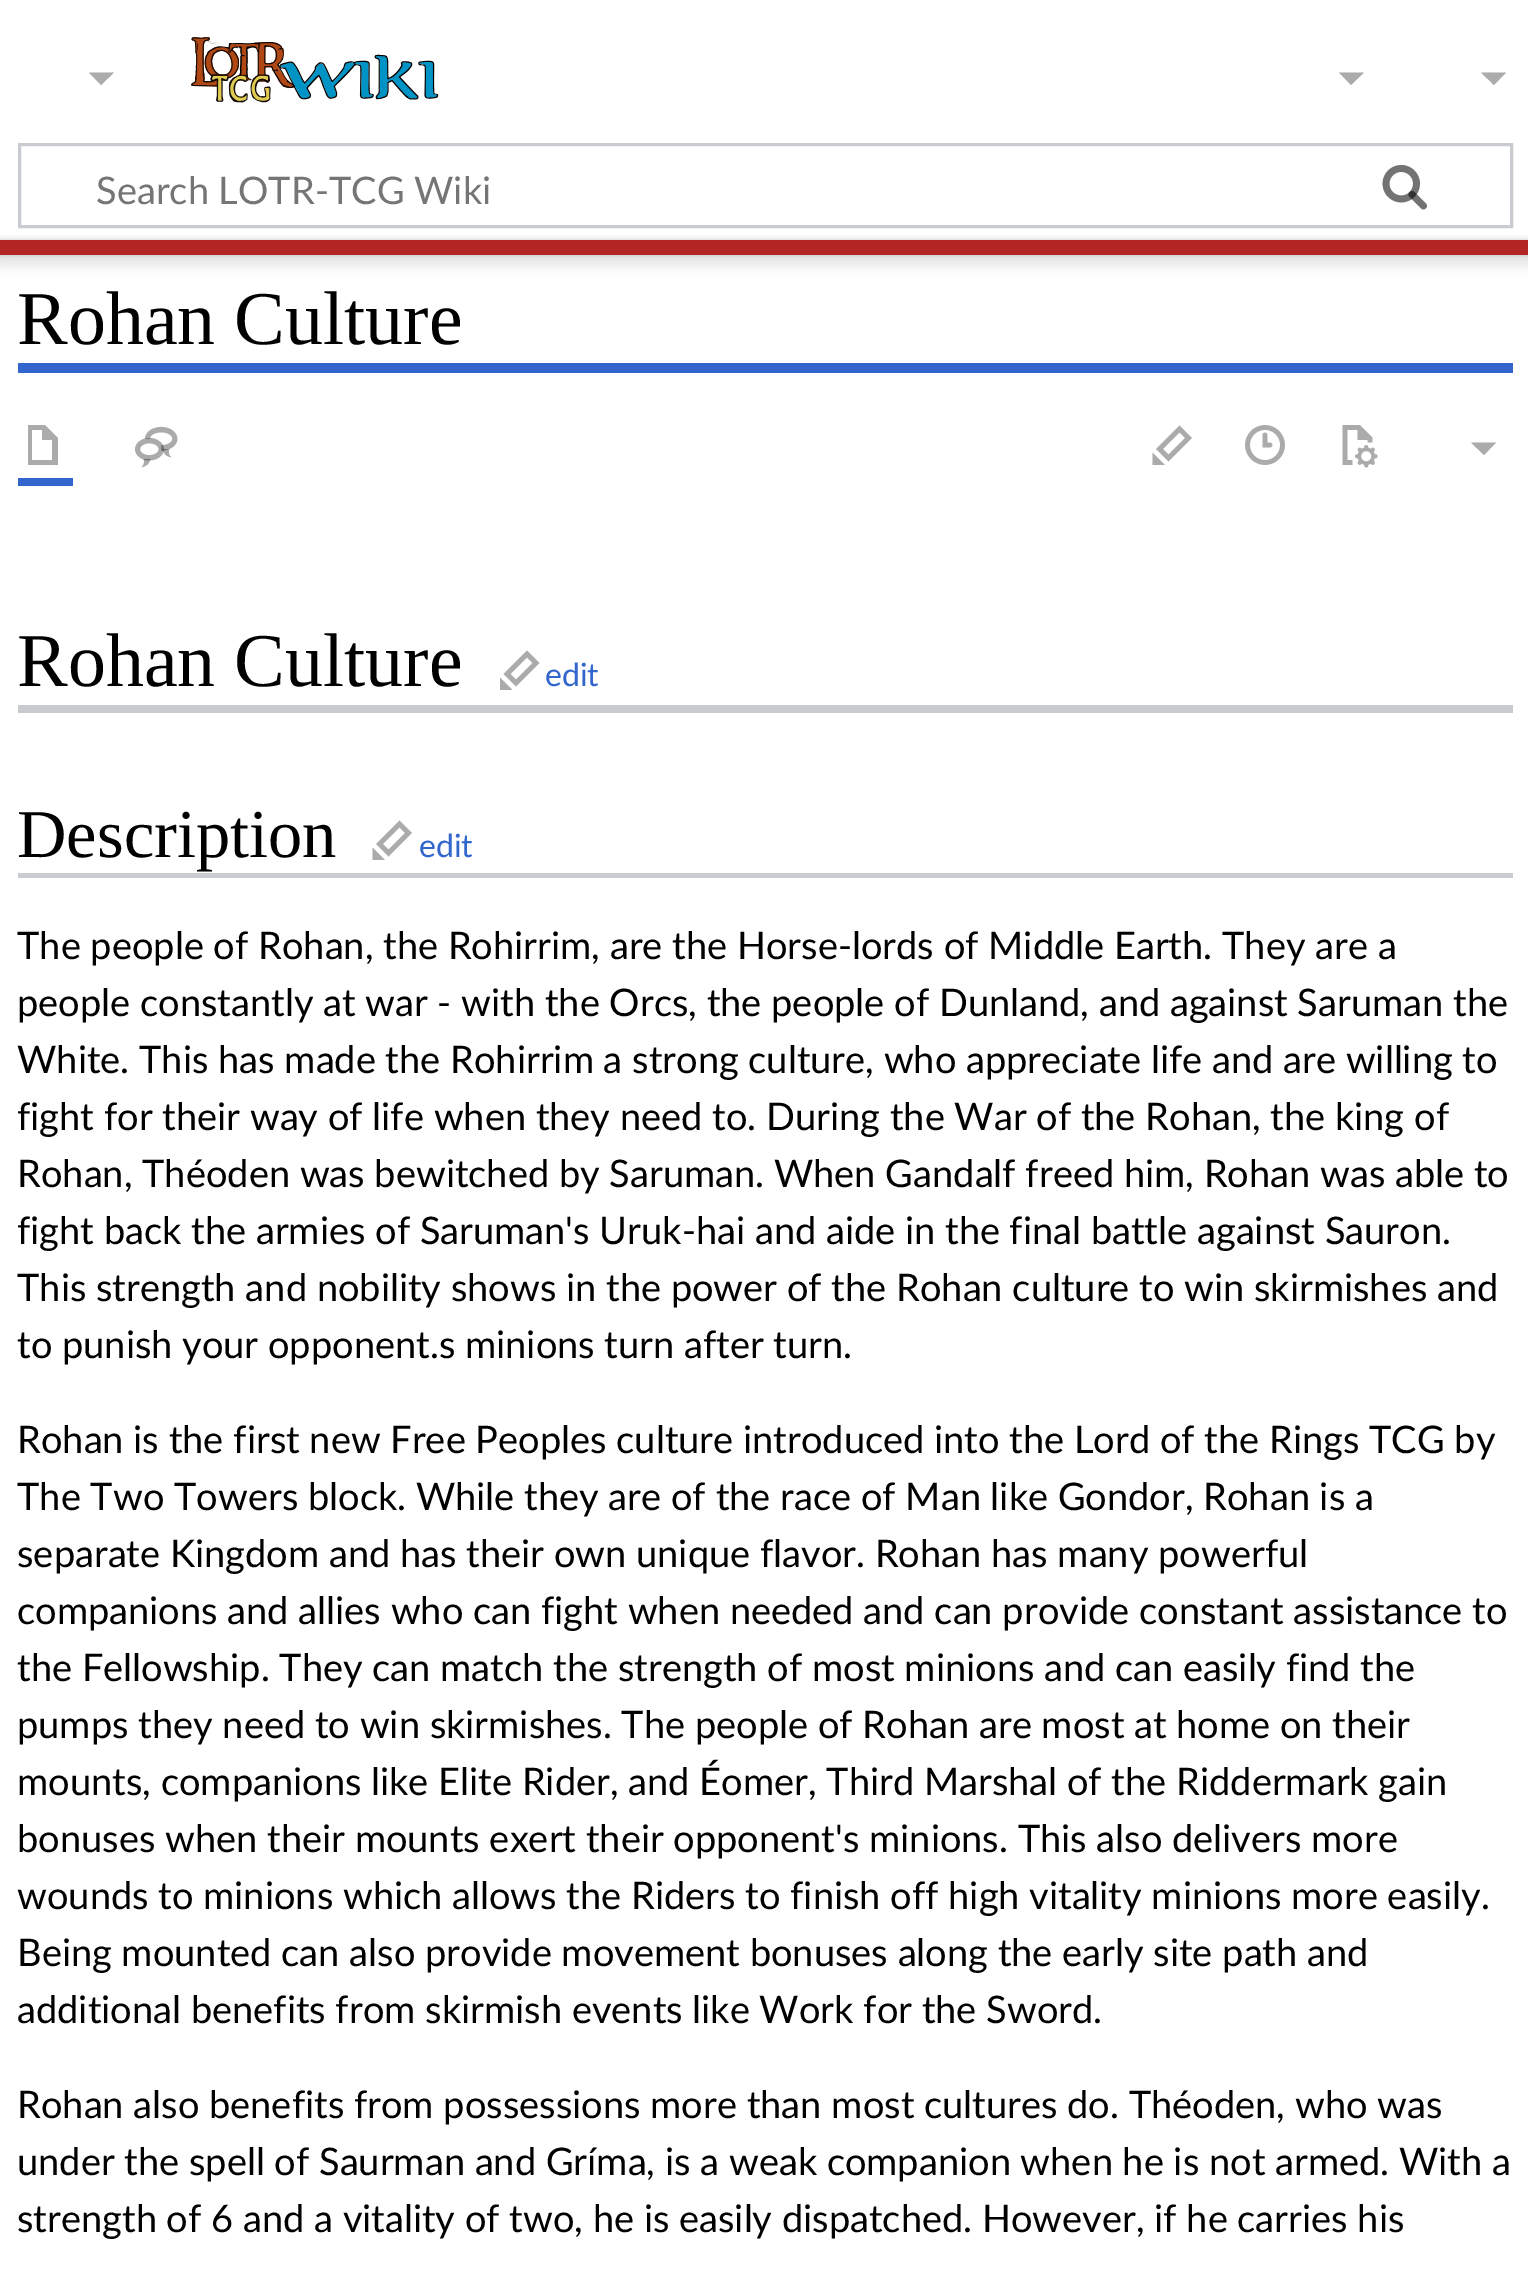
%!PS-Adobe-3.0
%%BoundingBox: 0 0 1528 2278
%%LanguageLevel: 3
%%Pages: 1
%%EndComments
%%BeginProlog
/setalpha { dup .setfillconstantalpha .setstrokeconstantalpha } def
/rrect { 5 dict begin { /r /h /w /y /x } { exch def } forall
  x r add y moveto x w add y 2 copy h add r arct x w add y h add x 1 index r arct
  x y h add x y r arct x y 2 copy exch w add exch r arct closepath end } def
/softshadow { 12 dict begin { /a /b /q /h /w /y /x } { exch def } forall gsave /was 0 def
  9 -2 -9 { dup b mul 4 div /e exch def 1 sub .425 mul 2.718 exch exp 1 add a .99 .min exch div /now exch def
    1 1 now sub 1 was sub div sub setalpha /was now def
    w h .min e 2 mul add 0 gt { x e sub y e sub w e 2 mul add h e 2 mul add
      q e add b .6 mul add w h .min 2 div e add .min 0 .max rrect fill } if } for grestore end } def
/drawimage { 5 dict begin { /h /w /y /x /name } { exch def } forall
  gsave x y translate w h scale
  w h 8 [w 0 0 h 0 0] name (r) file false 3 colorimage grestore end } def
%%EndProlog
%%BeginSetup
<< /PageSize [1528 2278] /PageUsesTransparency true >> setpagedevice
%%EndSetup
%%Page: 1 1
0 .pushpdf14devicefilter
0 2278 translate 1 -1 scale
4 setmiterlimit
1 setgray
0 0 1528 2278 rectfill
(images/1.raw) 191 37 248 66 drawimage
0.671 setgray
newpath 1506 72.5 moveto 1494 85 lineto 1481 72.5 lineto closepath fill
0.784 0.8 0.82 setrgbcolor
3 setlinewidth
19.5 144.5 1492 82 rectstroke
(images/2.raw) 1382 165 45 45 drawimage
(images/3.raw) 1382 165 45 45 drawimage
0 setgray
0 240 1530 15 0 2.5 0.2 softshadow
-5 243 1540 25 0 4 0.07 softshadow
0.702 0.141 0.141 setrgbcolor
0 240 1528 15 rectfill
0.671 setgray
newpath 114 72.5 moveto 101 85 lineto 89 72.5 lineto closepath fill
newpath 1364 72.5 moveto 1351 85 lineto 1339 72.5 lineto closepath fill
0.2 0.4 0.8 setrgbcolor
18 363 1495 10 rectfill
18 478 55 8 rectfill
0.671 setgray
newpath 28 425 moveto 28 465 lineto 58 465 lineto 58 438 lineto 45 425 lineto closepath 32 430 moveto 42 430 lineto 42 440 lineto 52 440 lineto 52 460 lineto 32 460 lineto closepath fill
(images/4.raw) 135 426 43 42 drawimage
newpath 1179.5 425.5 moveto 1156 449 lineto 1168.5 461.5 lineto 1192 438 lineto closepath 1179.5 432.5 moveto 1185 438 lineto 1168.5 454.5 lineto 1163 449 lineto closepath 1165 465 moveto 1152.5 465 lineto 1152.5 452.5 lineto closepath fill
(images/5.raw) 1245 425 40 40 drawimage
(images/6.raw) 1342 425 36 43 drawimage
newpath 1496 442.5 moveto 1484 455 lineto 1471 442.5 lineto closepath fill
0.784 0.8 0.82 setrgbcolor
18 705 1495 8 rectfill
0.671 setgray
newpath 527 650.5 moveto 503.5 674 lineto 516 686.5 lineto 539.5 663 lineto closepath 527 657.5 moveto 532.5 663 lineto 516 679.5 lineto 510.5 674 lineto closepath 512.5 690 moveto 500 690 lineto 500 677.5 lineto closepath fill
0.784 0.8 0.82 setrgbcolor
18 873 1495 5 rectfill
0.671 setgray
newpath 399.5 820.5 moveto 376 844 lineto 388.5 856.5 lineto 412 833 lineto closepath 399.5 827.5 moveto 405 833 lineto 388.5 849.5 lineto 383 844 lineto closepath 385 860 moveto 372.5 860 lineto 372.5 847.5 lineto closepath fill
/Lato-Regular [38 0 0 -38 0 0] selectfont
0.459 setgray
96 204 moveto (Search LOTR-TCG Wiki) show
/LiberationSerif-Regular [76 0 0 -76 0 0] selectfont
0 setgray
17 344 moveto (Rohan Culture) show
17 686 moveto (Rohan Culture) show
/Lato-Regular [32 0 0 -32 0 0] selectfont
0.2 0.4 0.8 setrgbcolor
545 686 moveto (edit) show
/LiberationSerif-Regular [68.5 0 0 -68.5 0 0] selectfont
0 setgray
17 857 moveto (Description) show
/Lato-Regular [32 0 0 -32 0 0] selectfont
0.2 0.4 0.8 setrgbcolor
419 857 moveto (edit) show
/Lato-Regular [38 0 0 -38 0 0] selectfont
0 setgray
17 959 moveto (The people of Rohan, the Rohirrim, are the Horse-lords of Middle Earth. They are a) show
17 1016 moveto (people constantly at war - with the Orcs, the people of Dunland, and against Saruman the) show
17 1073 moveto (White. This has made the Rohirrim a strong culture, who appreciate life and are willing to) show
17 1130 moveto (fight for their way of life when they need to. During the War of the Rohan, the king of) show
17 1187 moveto (Rohan, Théoden was bewitched by Saruman. When Gandalf freed him, Rohan was able to) show
17 1244 moveto (fight back the armies of Saruman's Uruk-hai and aide in the final battle against Sauron.) show
17 1301 moveto (This strength and nobility shows in the power of the Rohan culture to win skirmishes and) show
17 1358 moveto (to punish your opponent.s minions turn after turn.) show
17 1453 moveto (Rohan is the first new Free Peoples culture introduced into the Lord of the Rings TCG by) show
17 1510 moveto (The Two Towers block. While they are of the race of Man like Gondor, Rohan is a) show
17 1567 moveto (separate Kingdom and has their own unique flavor. Rohan has many powerful) show
17 1624 moveto (companions and allies who can fight when needed and can provide constant assistance to) show
17 1681 moveto (the Fellowship. They can match the strength of most minions and can easily find the) show
17 1738 moveto (pumps they need to win skirmishes. The people of Rohan are most at home on their) show
17 1795 moveto (mounts, companions like Elite Rider, and Éomer, Third Marshal of the Riddermark gain) show
17 1852 moveto (bonuses when their mounts exert their opponent's minions. This also delivers more) show
17 1909 moveto (wounds to minions which allows the Riders to finish off high vitality minions more easily.) show
17 1966 moveto (Being mounted can also provide movement bonuses along the early site path and) show
17 2023 moveto (additional benefits from skirmish events like Work for the Sword.) show
17 2118 moveto (Rohan also benefits from possessions more than most cultures do. Théoden, who was) show
17 2175 moveto (under the spell of Saurman and Gríma, is a weak companion when he is not armed. With a) show
17 2232 moveto (strength of 6 and a vitality of two, he is easily dispatched. However, if he carries his) show
.poppdf14devicefilter showpage
%%EOF
